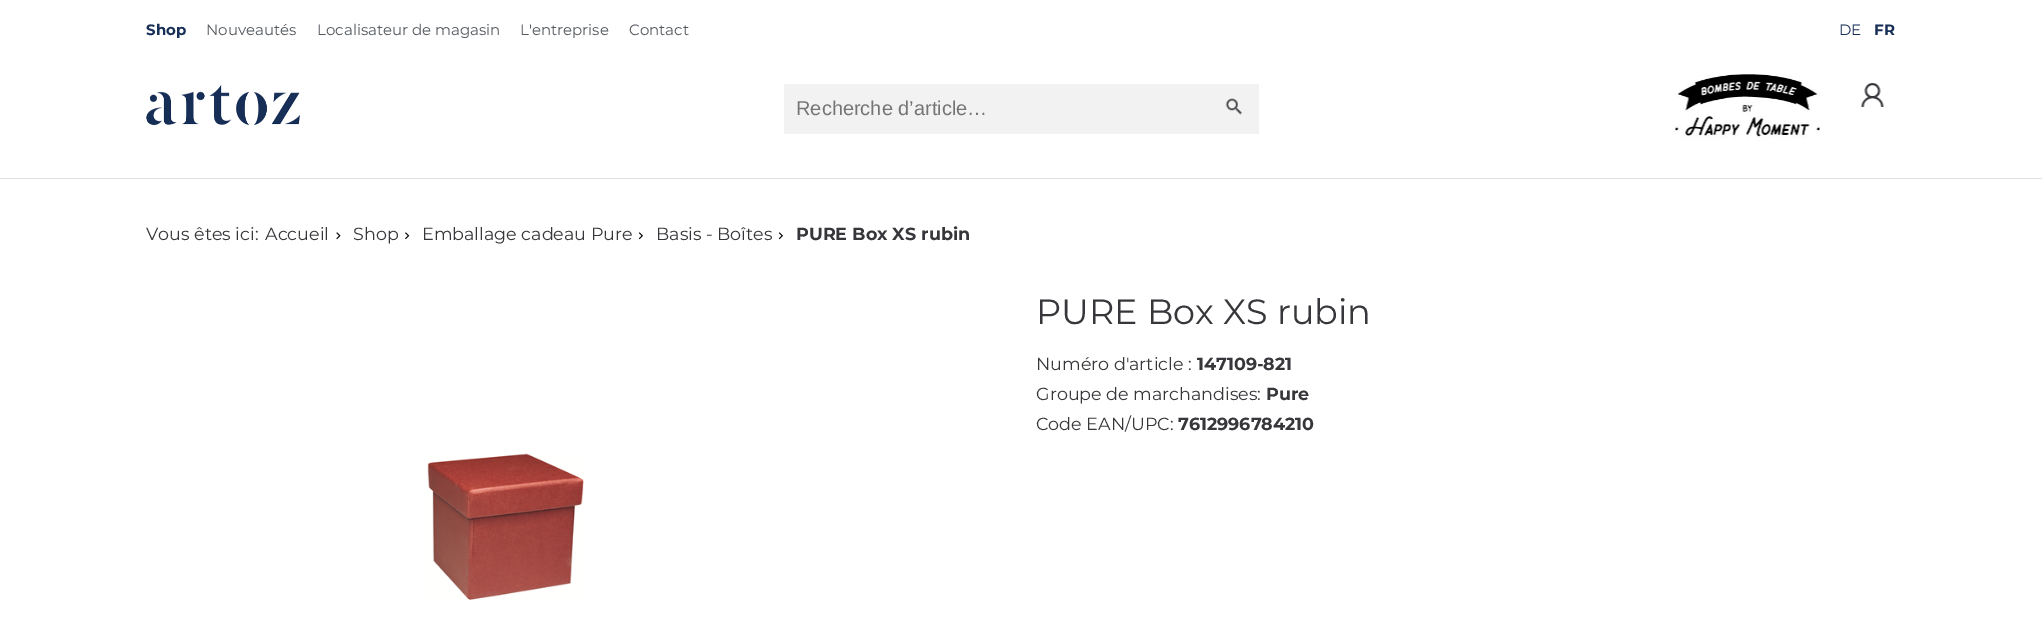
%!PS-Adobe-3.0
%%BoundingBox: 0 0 2042 639
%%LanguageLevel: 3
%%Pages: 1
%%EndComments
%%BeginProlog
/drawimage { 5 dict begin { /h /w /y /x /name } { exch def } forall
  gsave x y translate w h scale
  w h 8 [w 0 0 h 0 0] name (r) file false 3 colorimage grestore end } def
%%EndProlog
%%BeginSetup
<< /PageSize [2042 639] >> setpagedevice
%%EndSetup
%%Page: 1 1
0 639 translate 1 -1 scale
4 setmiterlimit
1 setgray
0 0 2042 639 rectfill
0.882 0.886 0.898 setrgbcolor
0 178 2042 1 rectfill
(images/1.raw) 146 85 154 40 drawimage
0.949 setgray
784 84 475 50 rectfill
(images/2.raw) 1225 98 17 17 drawimage
(images/3.raw) 1674 74 146 65 drawimage
(images/4.raw) 1861 83 23 24 drawimage
(images/5.raw) 336 232 5 8 drawimage
(images/6.raw) 405 232 5 8 drawimage
(images/7.raw) 638 232 5 8 drawimage
(images/7.raw) 778 232 5 8 drawimage
(images/8.raw) 427 453 157 147 drawimage
/Montserrat-Bold [15 0 0 -15 0 0] selectfont
0.09 0.18 0.341 setrgbcolor
146 35 moveto (Shop) show
/Montserrat-Regular [15 0 0 -15 0 0] selectfont
0.329 0.349 0.373 setrgbcolor
206 35 moveto (Nouveautés) show
317 35 moveto (Localisateur de magasin) show
520 35 moveto (L'entreprise) show
629 35 moveto (Contact) show
0.09 0.18 0.341 setrgbcolor
1839 35 moveto (DE) show
/Montserrat-Bold [15 0 0 -15 0 0] selectfont
1874 35 moveto (FR) show
/LiberationSans-Regular [20 0 0 -20 0 0] selectfont
0.459 setgray
796 115 moveto (Recherche d’article…) show
/Montserrat-Regular [17.5 0 0 -17.5 0 0] selectfont
0.216 0.216 0.231 setrgbcolor
146 240 moveto (Vous êtes ici:) show
265 240 moveto (Accueil) show
353 240 moveto (Shop) show
422 240 moveto (Emballage cadeau Pure) show
656 240 moveto (Basis - Boîtes) show
/Montserrat-Bold [17.5 0 0 -17.5 0 0] selectfont
796 240 moveto (PURE Box XS rubin) show
/Montserrat-Regular [35 0 0 -35 0 0] selectfont
1036 324 moveto (PURE Box XS rubin) show
/Montserrat-Regular [17.5 0 0 -17.5 0 0] selectfont
1036 370 moveto (Numéro d'article :) show
/Montserrat-Bold [17.5 0 0 -17.5 0 0] selectfont
1197 370 moveto (147109-821) show
/Montserrat-Regular [17.5 0 0 -17.5 0 0] selectfont
1036 400 moveto (Groupe de marchandises:) show
/Montserrat-Bold [17.5 0 0 -17.5 0 0] selectfont
1266 400 moveto (Pure) show
/Montserrat-Regular [17.5 0 0 -17.5 0 0] selectfont
1036 430 moveto (Code EAN/UPC:) show
/Montserrat-Bold [17.5 0 0 -17.5 0 0] selectfont
1178 430 moveto (7612996784210) show
showpage
%%EOF
